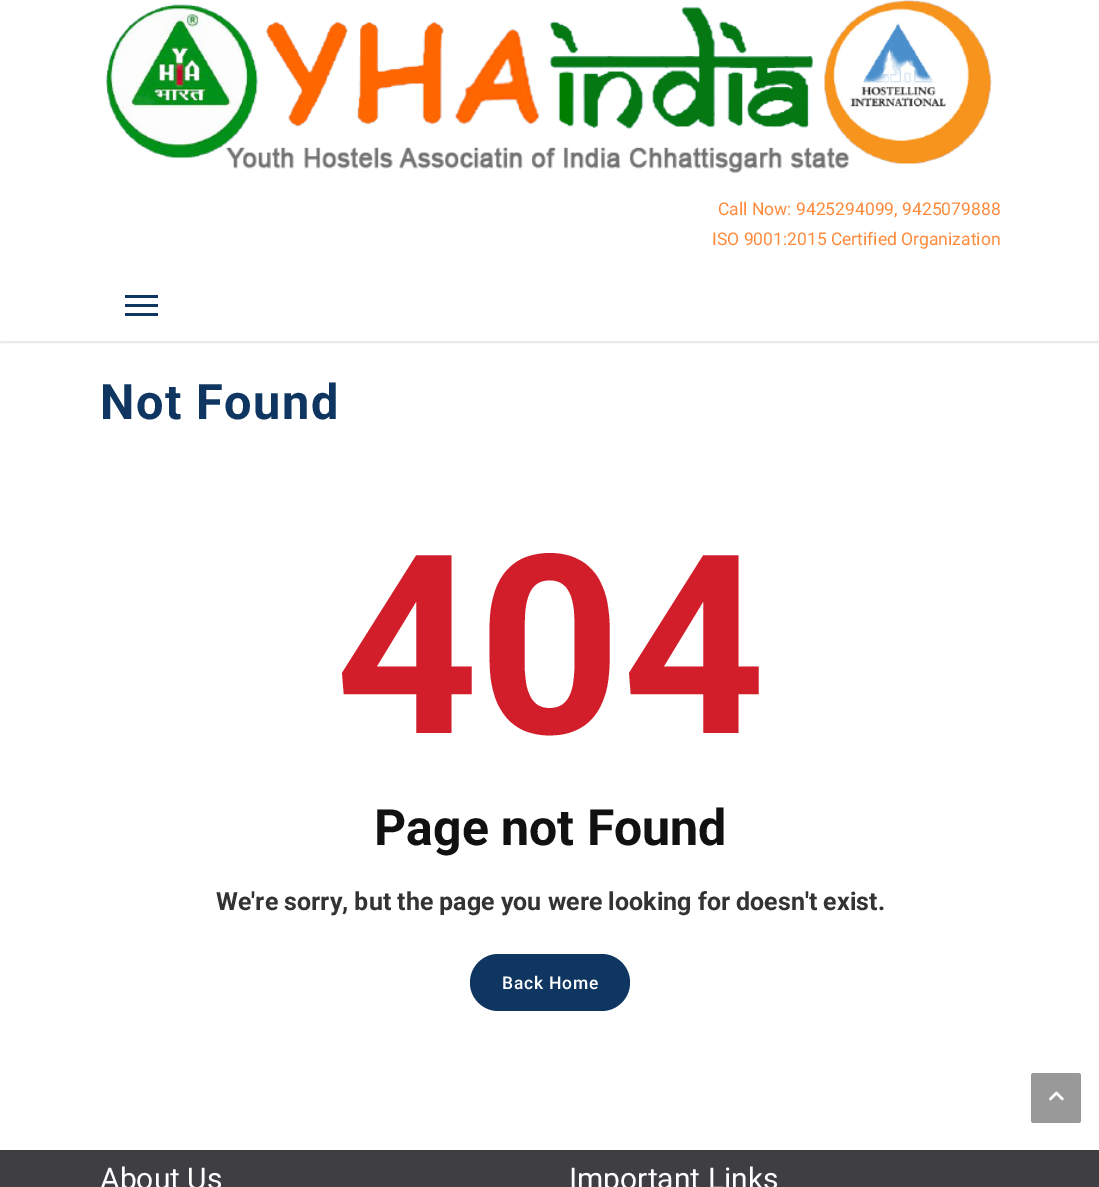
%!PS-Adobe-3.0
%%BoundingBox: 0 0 1099 1187
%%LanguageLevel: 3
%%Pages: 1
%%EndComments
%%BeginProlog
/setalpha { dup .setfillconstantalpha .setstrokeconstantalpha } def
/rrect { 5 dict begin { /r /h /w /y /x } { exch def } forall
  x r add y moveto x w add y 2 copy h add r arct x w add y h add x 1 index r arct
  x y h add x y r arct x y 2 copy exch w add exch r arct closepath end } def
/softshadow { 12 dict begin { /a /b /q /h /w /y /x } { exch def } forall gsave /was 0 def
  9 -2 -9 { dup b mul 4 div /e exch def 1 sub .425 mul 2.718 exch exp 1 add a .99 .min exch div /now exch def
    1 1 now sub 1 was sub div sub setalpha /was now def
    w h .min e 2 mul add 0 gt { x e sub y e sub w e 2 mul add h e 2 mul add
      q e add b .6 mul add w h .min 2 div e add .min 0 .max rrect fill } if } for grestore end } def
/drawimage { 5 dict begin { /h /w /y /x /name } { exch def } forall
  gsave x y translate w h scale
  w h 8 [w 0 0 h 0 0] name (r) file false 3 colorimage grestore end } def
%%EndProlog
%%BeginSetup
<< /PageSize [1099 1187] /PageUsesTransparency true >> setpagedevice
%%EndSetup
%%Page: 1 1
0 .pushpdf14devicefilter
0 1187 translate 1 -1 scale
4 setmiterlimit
1 setgray
0 0 1099 1187 rectfill
gsave
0 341 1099 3 rectclip
0 setgray
0 1 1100 342 0 1 0.1 softshadow
grestore
(images/1.raw) 105 0 887 173 drawimage
0.059 0.212 0.38 setrgbcolor
125 295 33 3 rectfill
125 304 33 3 rectfill
125 313 33 3 rectfill
470 954 160 57 28.5 rrect fill
0.6 setgray
1031 1073 50 50 2.5 rrect fill
(images/2.raw) 1049 1091 15 10 drawimage
0.247 0.243 0.263 setrgbcolor
0 1150 1099 37 rectfill
/Roboto-Regular [17.5 0 0 -17.5 0 0] selectfont
1 0.541 0.235 setrgbcolor
718 215 moveto (Call Now: 9425294099, 9425079888) show
712 245 moveto (ISO 9001:2015 Certified Organization) show
/Roboto-Bold [48.75 0 0 -48.75 0 0] selectfont
0.059 0.212 0.38 setrgbcolor
100 419 moveto 1.4 0 (Not Found) ashow
/Roboto-Bold [250 0 0 -250 0 0] selectfont
0.824 0.118 0.169 setrgbcolor
335 733 moveto (404) show
/Roboto-Bold [50 0 0 -50 0 0] selectfont
0.067 setgray
374 845 moveto (Page not Found) show
/Roboto-Bold [25 0 0 -25 0 0] selectfont
0.2 setgray
216 910 moveto (We're sorry, but the page you were looking for doesn't exist.) show
/Roboto-Medium [17.5 0 0 -17.5 0 0] selectfont
1 setgray
502 989 moveto 0.75 0 (Back Home) ashow
/Roboto-Regular [30 0 0 -30 0 0] selectfont
100 1189 moveto (About Us) show
569 1189 moveto (Important Links) show
.poppdf14devicefilter showpage
%%EOF
